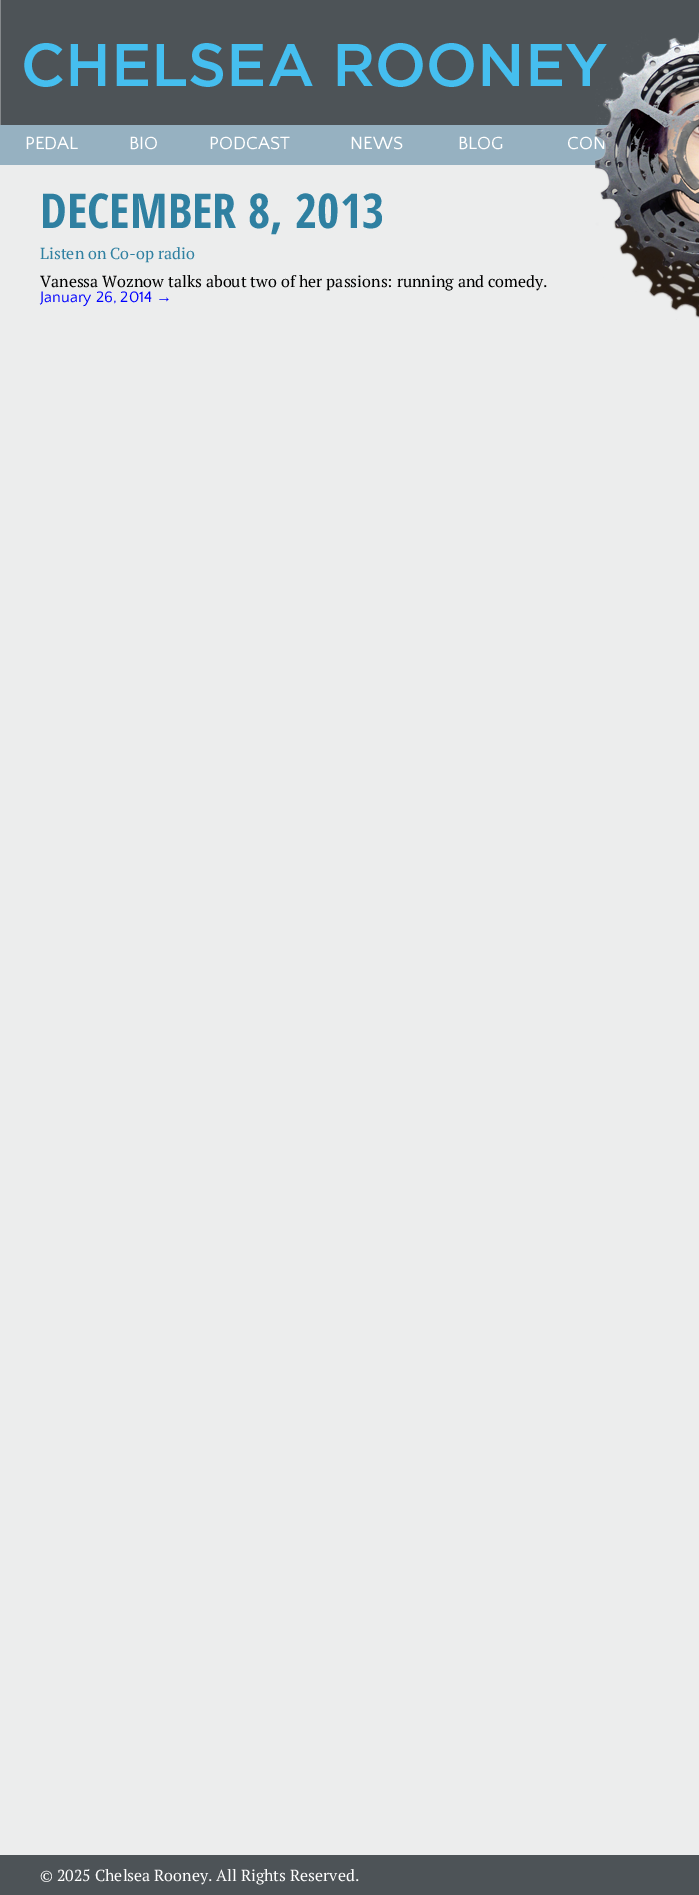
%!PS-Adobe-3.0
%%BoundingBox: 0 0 699 1895
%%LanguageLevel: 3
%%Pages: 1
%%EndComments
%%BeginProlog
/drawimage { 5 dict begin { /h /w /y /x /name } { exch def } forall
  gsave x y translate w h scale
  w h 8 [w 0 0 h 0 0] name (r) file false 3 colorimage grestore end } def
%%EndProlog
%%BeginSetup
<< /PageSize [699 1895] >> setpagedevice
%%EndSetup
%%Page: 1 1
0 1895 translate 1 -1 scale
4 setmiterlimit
0.925 0.929 0.929 setrgbcolor
0 0 699 1895 rectfill
0.302 0.325 0.341 setrgbcolor
607 0 92 125 rectfill
(images/1.raw) 0 0 607 125 drawimage
0.588 0.694 0.757 setrgbcolor
0 125 609 40 rectfill
0.302 0.325 0.341 setrgbcolor
0 1855 699 40 rectfill
/QuattrocentoSans-Regular [18.5 0 0 -18.5 0 0] selectfont
1 setgray
25 149 moveto (PEDAL) show
129 149 moveto (BIO) show
209 149 moveto (PODCAST) show
350 149 moveto (NEWS) show
458 149 moveto (BLOG) show
567 149 moveto (CON) show
(images/2.raw) 595 32 104 288 drawimage
/OpenSansCondensed-Bold [48 0 0 -48 0 0] selectfont
0.184 0.502 0.631 setrgbcolor
40 228 moveto (DECEMBER 8, 2013) show
/PTSerif-Regular [16 0 0 -16 0 0] selectfont
40 259 moveto (Listen on Co-op radio) show
0 setgray
40 287 moveto (Vanessa Woznow talks about two of her passions: running and comedy.) show
/QuattrocentoSans-Regular [16 0 0 -16 0 0] selectfont
0 0 1 setrgbcolor
40 302 moveto (January 26, 2014) show
/LiberationSans-Regular [16 0 0 -16 0 0] selectfont
156 302 moveto (→) show
/PTSerif-Regular [16 0 0 -16 0 0] selectfont
1 setgray
40 1881 moveto (© 2025 Chelsea Rooney. All Rights Reserved.) show
showpage
%%EOF
